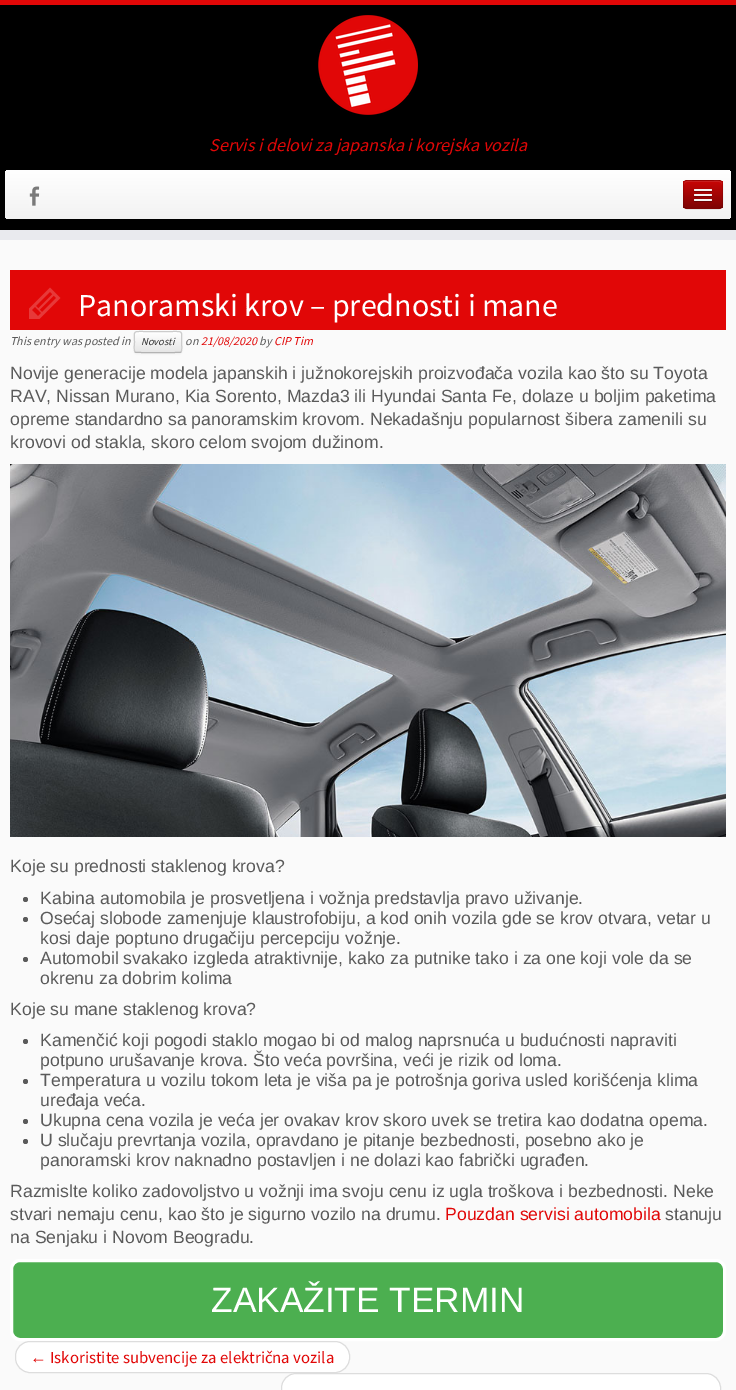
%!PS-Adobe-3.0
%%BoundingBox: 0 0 736 1390
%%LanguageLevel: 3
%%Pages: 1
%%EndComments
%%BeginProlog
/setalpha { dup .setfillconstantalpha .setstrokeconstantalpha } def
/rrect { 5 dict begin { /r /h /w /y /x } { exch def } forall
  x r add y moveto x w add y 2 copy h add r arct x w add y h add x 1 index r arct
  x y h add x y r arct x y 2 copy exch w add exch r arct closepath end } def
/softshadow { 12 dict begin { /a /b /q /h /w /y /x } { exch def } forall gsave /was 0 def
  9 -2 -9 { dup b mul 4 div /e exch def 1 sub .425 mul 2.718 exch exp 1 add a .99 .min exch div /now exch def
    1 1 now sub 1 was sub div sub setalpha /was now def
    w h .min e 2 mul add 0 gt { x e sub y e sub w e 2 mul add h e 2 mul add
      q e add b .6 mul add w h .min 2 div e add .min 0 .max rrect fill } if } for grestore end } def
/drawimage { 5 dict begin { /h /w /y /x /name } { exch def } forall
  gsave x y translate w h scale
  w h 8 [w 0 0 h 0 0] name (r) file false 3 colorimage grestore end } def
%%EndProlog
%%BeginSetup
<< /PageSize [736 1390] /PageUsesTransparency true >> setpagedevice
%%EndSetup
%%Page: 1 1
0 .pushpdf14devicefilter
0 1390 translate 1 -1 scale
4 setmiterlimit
0.98 setgray
0 0 736 1390 rectfill
0 setgray
0 5 736 225 rectfill
0.882 0.027 0.027 setrgbcolor
0 0 736 5 rectfill
0.914 0.918 0.933 setrgbcolor
0 230 736 10 rectfill
(images/1.raw) 318 15 100 100 drawimage
gsave 5 170 726 49 4 rrect clip newpath
<< /ShadingType 2 /ColorSpace /DeviceRGB /Coords [368 170 368 219] /Extend [true true] /Function << /FunctionType 2 /Domain [0 1] /C0 [1 1 1] /C1 [0.949 0.949 0.949] /N 1 >> >> shfill grestore
(images/2.raw) 29 186 11 20 drawimage
0.671 0.02 0.02 setrgbcolor
683 180 40 29 4 rrect fill
gsave
683 180 40 29 4 rrect clip newpath
gsave newpath 683 181 moveto 723 181 lineto 723 208 lineto 683 208 lineto closepath clip newpath
<< /ShadingType 2 /ColorSpace /DeviceRGB /Coords [703 181 703 208] /Extend [true true] /Function << /FunctionType 2 /Domain [0 1] /C0 [0.784 0.024 0.024] /C1 [0.494 0.016 0.016] /N 1 >> >> shfill grestore
grestore
0.804 0.122 0.122 setrgbcolor
newpath 687 182 moveto 719 182 lineto 721 182 722 183 722 185 curveto 722 180 718 181 713.5 181 curveto 692.5 181 lineto 688 181 684 180 684 185 curveto 684 183 685 182 687 182 curveto closepath fill
0.25 setalpha
0 setgray
newpath 721.5 207.5 moveto 721 208 720 208.5 719 208.5 curveto 687 208.5 lineto 686 208.5 685 208 684.5 207.5 curveto stroke
0.1 setalpha
newpath 684.5 207.5 moveto 684 207 683.5 206 683.5 205 curveto 683.5 184 lineto 683.5 183 684 182 684.5 181.5 curveto 685 181 686 180.5 687 180.5 curveto 719 180.5 lineto 720 180.5 721 181 721.5 181.5 curveto 722 182 722.5 183 722.5 184 curveto 722.5 205 lineto 722.5 206 722 207 721.5 207.5 curveto stroke
1 setalpha
0.502 0.016 0.016 setrgbcolor
newpath 694 190.5 moveto 693 192.5 697.5 192 697.5 192 curveto 708.5 192 lineto 708.5 192 713 192.5 712 190.5 curveto 711 191.5 704.5 191 703 191 curveto 701.5 191 695 191.5 694 190.5 curveto closepath fill
0.961 setgray
694 189 18 2 1 rrect fill
0.467 0.016 0.016 setrgbcolor
newpath 694 195.5 moveto 693 197.5 697.5 197 697.5 197 curveto 708.5 197 lineto 708.5 197 713 197.5 712 195.5 curveto 711 196.5 704.5 196 703 196 curveto 701.5 196 695 196.5 694 195.5 curveto closepath fill
0.961 setgray
694 194 18 2 1 rrect fill
0.424 0.012 0.012 setrgbcolor
newpath 694 200.5 moveto 693 202.5 697.5 202 697.5 202 curveto 708.5 202 lineto 708.5 202 713 202.5 712 200.5 curveto 711 201.5 704.5 201 703 201 curveto 701.5 201 695 201.5 694 200.5 curveto closepath fill
0.961 setgray
694 199 18 2 1 rrect fill
0.882 0.027 0.027 setrgbcolor
10 270 716 60 rectfill
(images/3.raw) 29 287 32 32 drawimage
0 setgray
134 332 48 22 3 1 0.05 softshadow
gsave
134 331 48 22 3 rrect clip newpath
gsave newpath 134 332 moveto 182 332 lineto 182 352 lineto 134 352 lineto closepath clip newpath
<< /ShadingType 2 /ColorSpace /DeviceRGB /Coords [158 332 158 352] /Extend [true true] /Function << /FunctionType 2 /Domain [0 1] /C0 [1 1 1] /C1 [0.902 0.902 0.902] /N 1 >> >> shfill grestore
grestore
0.996 setgray
newpath 137 333 moveto 179 333 lineto 180 333 181 334 181 335 curveto 181 330 176 332 172 332 curveto 144 332 lineto 140 332 135 330 135 335 curveto 135 334 136 333 137 333 curveto closepath fill
0.702 setgray
newpath 181 352 moveto 179.5 353 136.5 353 135 352 curveto stroke
0.8 setgray
newpath 135 352 moveto 133.5 350 134.5 344 134.5 342 curveto 134.5 330.5 132.5 331.5 144 331.5 curveto 172 331.5 lineto 183.5 331.5 181.5 330.5 181.5 342 curveto 181.5 344 182.5 350 181 352 curveto stroke
(images/4.raw) 10 464 716 373 drawimage
0.353 setgray
newpath 25.5 899.5 2.5 0 360 arc closepath fill
newpath 25.5 919.5 2.5 0 360 arc closepath fill
newpath 25.5 959.5 2.5 0 360 arc closepath fill
newpath 25.5 1041.5 2.5 0 360 arc closepath fill
newpath 25.5 1081.5 2.5 0 360 arc closepath fill
newpath 25.5 1121.5 2.5 0 360 arc closepath fill
newpath 25.5 1141.5 2.5 0 360 arc closepath fill
0.298 0.686 0.314 setrgbcolor
11.5 1260.5 713 79 8.5 rrect gsave fill grestore
1 setgray
3 setlinewidth
stroke
15.5 1341.5 334 31 14.5 rrect gsave fill grestore
0.867 setgray
1 setlinewidth
stroke
1 setgray
281.5 1373.5 439 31 14.5 rrect gsave fill grestore
0.867 setgray
stroke
/SourceSansPro-Italic [18 0 0 -18 0 0] selectfont
0.882 0.027 0.027 setrgbcolor
209 151 moveto (Servis i delovi za japanska i korejska vozila) show
/SourceSansPro-Regular [32 0 0 -32 0 0] selectfont
1 setgray
78 316 moveto (Panoramski krov – prednosti i mane) show
/SourceSansPro-Italic [12 0 0 -12 0 0] selectfont
0.353 setgray
10 345 moveto (This entry was posted in) show
/SourceSansPro-Italic [10.5 0 0 -10.5 0 0] selectfont
0.2 setgray
141 345 moveto (Novosti) show
/SourceSansPro-Italic [12 0 0 -12 0 0] selectfont
0.353 setgray
185 345 moveto (on) show
0.882 0.027 0.027 setrgbcolor
201 345 moveto (21/08/2020) show
0.353 setgray
259 345 moveto (by) show
0.882 0.027 0.027 setrgbcolor
274 345 moveto (CIP Tim) show
/LiberationSans-Regular [17.65 0 0 -17.65 0 0] selectfont
0.353 setgray
10 379 moveto (Novije generacije modela japanskih i južnokorejskih proizvođača vozila kao što su Toyota) show
10 402 moveto (RAV, Nissan Murano, Kia Sorento, Mazda3 ili Hyundai Santa Fe, dolaze u boljim paketima) show
10 425 moveto (opreme standardno sa panoramskim krovom. Nekadašnju popularnost šibera zamenili su) show
10 448 moveto (krovovi od stakla, skoro celom svojom dužinom.) show
10 872 moveto (Koje su prednosti staklenog krova?) show
40 904 moveto (Kabina automobila je prosvetljena i vožnja predstavlja pravo uživanje.) show
40 924 moveto (Osećaj slobode zamenjuje klaustrofobiju, a kod onih vozila gde se krov otvara, vetar u) show
40 944 moveto (kosi daje poptuno drugačiju percepciju vožnje.) show
40 964 moveto (Automobil svakako izgleda atraktivnije, kako za putnike tako i za one koji vole da se) show
40 984 moveto (okrenu za dobrim kolima) show
10 1015 moveto (Koje su mane staklenog krova?) show
40 1046 moveto (Kamenčić koji pogodi staklo mogao bi od malog naprsnuća u budućnosti napraviti) show
40 1066 moveto (potpuno urušavanje krova. Što veća površina, veći je rizik od loma.) show
40 1086 moveto (Temperatura u vozilu tokom leta je viša pa je potrošnja goriva usled korišćenja klima) show
40 1106 moveto (uređaja veća.) show
40 1126 moveto (Ukupna cena vozila je veća jer ovakav krov skoro uvek se tretira kao dodatna opema.) show
40 1146 moveto (U slučaju prevrtanja vozila, opravdano je pitanje bezbednosti, posebno ako je) show
40 1166 moveto (panoramski krov naknadno postavljen i ne dolazi kao fabrički ugrađen.) show
10 1197 moveto (Razmislte koliko zadovoljstvo u vožnji ima svoju cenu iz ugla troškova i bezbednosti. Neke) show
10 1220 moveto (stvari nemaju cenu, kao što je sigurno vozilo na drumu.) show
0.882 0.027 0.027 setrgbcolor
445 1220 moveto (Pouzdan servisi automobila) show
0.353 setgray
665 1220 moveto (stanuju) show
10 1243 moveto (na Senjaku i Novom Beogradu.) show
/LiberationSans-Regular [35.25 0 0 -35.25 0 0] selectfont
1 setgray
211 1312 moveto (ZAKAŽITE TERMIN) show
/LiberationSerif-Regular [16.75 0 0 -16.75 0 0] selectfont
0.882 0.027 0.027 setrgbcolor
30 1363 moveto (←) show
/SourceSansPro-Regular [16.75 0 0 -16.75 0 0] selectfont
50 1363 moveto (Iskoristite subvencije za električna vozila) show
.poppdf14devicefilter showpage
%%EOF
